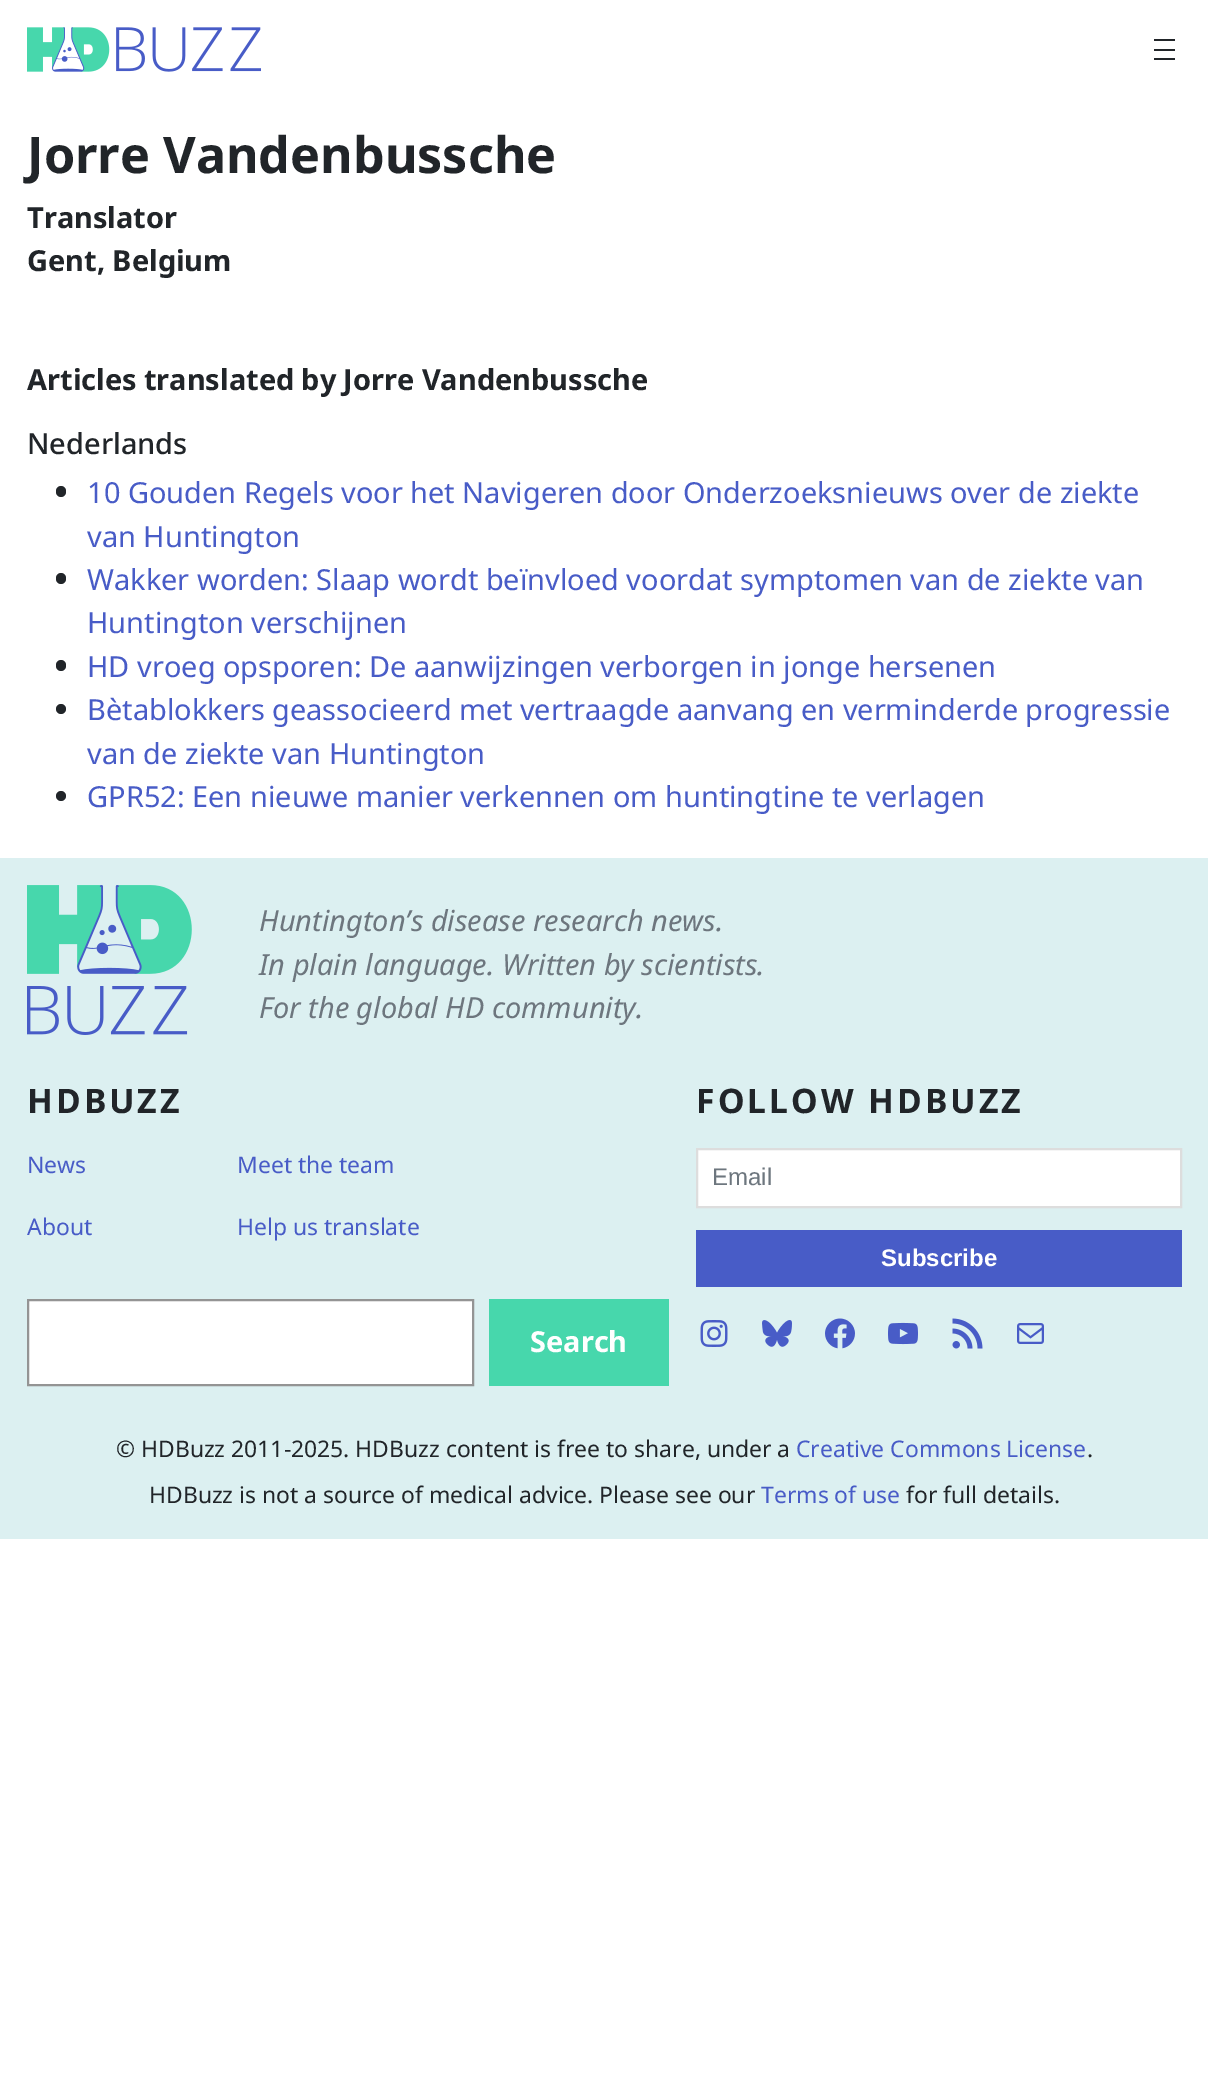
%!PS-Adobe-3.0
%%BoundingBox: 0 0 1208 2076
%%LanguageLevel: 3
%%Pages: 1
%%EndComments
%%BeginProlog
/rrect { 5 dict begin { /r /h /w /y /x } { exch def } forall
  x r add y moveto x w add y 2 copy h add r arct x w add y h add x 1 index r arct
  x y h add x y r arct x y 2 copy exch w add exch r arct closepath end } def
/drawimage { 5 dict begin { /h /w /y /x /name } { exch def } forall
  gsave x y translate w h scale
  w h 8 [w 0 0 h 0 0] name (r) file false 3 colorimage grestore end } def
%%EndProlog
%%BeginSetup
<< /PageSize [1208 2076] >> setpagedevice
%%EndSetup
%%Page: 1 1
0 2076 translate 1 -1 scale
4 setmiterlimit
1 setgray
0 0 1208 2076 rectfill
(images/1.raw) 27 27 234 45 drawimage
0.129 0.145 0.161 setrgbcolor
1154 39 21 2 rectfill
1154 49 21 2 rectfill
1154 58 21 2 rectfill
56 486 10 11 5 rrect fill
56 573 10 11 5 rrect fill
56 660 10 11 5 rrect fill
newpath 61 709 5 0 360 arc closepath fill
newpath 61 796 5 0 360 arc closepath fill
0.863 0.941 0.945 setrgbcolor
0 858 1208 681 rectfill
(images/2.raw) 27 885 165 150 drawimage
1 setgray
newpath 28 1300 moveto 473 1300 lineto 473 1385 lineto 28 1385 lineto closepath gsave fill grestore
0.58 setgray
2 setlinewidth
stroke
0.278 0.843 0.675 setrgbcolor
489 1299 180 87 rectfill
1 setgray
newpath 697 1149 moveto 1181 1149 lineto 1181 1207 lineto 697 1207 lineto closepath gsave fill grestore
0.867 setgray
stroke
0.282 0.361 0.78 setrgbcolor
696 1230 486 57 rectfill
(images/3.raw) 700 1320 28 27 drawimage
(images/4.raw) 762 1320 30 27 drawimage
(images/5.raw) 825 1318 30 31 drawimage
(images/6.raw) 888 1322 30 23 drawimage
(images/7.raw) 952 1318 31 31 drawimage
(images/8.raw) 1017 1323 27 21 drawimage
/NotoSans-Bold [50.25 0 0 -50.25 0 0] selectfont
0.129 0.145 0.161 setrgbcolor
27 173 moveto (Jorre Vandenbussche) show
/NotoSans-Bold [28.95 0 0 -28.95 0 0] selectfont
27 228 moveto (Translator) show
27 271 moveto (Gent, Belgium) show
27 390 moveto -0.25 0 32 (Articles translated by Jorre Vandenbussche) widthshow
/NotoSans-Medium [28.95 0 0 -28.95 0 0] selectfont
27 454 moveto (Nederlands) show
/NotoSans-Regular [28.95 0 0 -28.95 0 0] selectfont
0.282 0.361 0.78 setrgbcolor
87 503 moveto (10 Gouden Regels voor het Navigeren door Onderzoeksnieuws over de ziekte) show
87 547 moveto (van Huntington) show
87 590 moveto (Wakker worden: Slaap wordt beïnvloed voordat symptomen van de ziekte van) show
87 633 moveto (Huntington verschijnen) show
87 677 moveto (HD vroeg opsporen: De aanwijzingen verborgen in jonge hersenen) show
87 720 moveto -0.25 0 32 (Bètablokkers geassocieerd met vertraagde aanvang en verminderde progressie) widthshow
87 764 moveto (van de ziekte van Huntington) show
87 807 moveto (GPR52: Een nieuwe manier verkennen om huntingtine te verlagen) show
/NotoSans-Italic [28.95 0 0 -28.95 0 0] selectfont
0.427 0.463 0.494 setrgbcolor
259 931 moveto (Huntington’s disease research news.) show
259 975 moveto (In plain language. Written by scientists.) show
259 1018 moveto (For the global HD community.) show
/NotoSans-Bold [33.75 0 0 -33.75 0 0] selectfont
0.129 0.145 0.161 setrgbcolor
27 1113 moveto 3 0 (HDBUZZ) ashow
/NotoSans-Regular [22.9 0 0 -22.9 0 0] selectfont
0.282 0.361 0.78 setrgbcolor
27 1173 moveto (News) show
237 1173 moveto (Meet the team) show
27 1235 moveto (About) show
237 1235 moveto (Help us translate) show
/NotoSans-Bold [28.95 0 0 -28.95 0 0] selectfont
1 setgray
530 1352 moveto (Search) show
/NotoSans-Bold [33.75 0 0 -33.75 0 0] selectfont
0.129 0.145 0.161 setrgbcolor
696 1113 moveto 3 0 (FOLLOW HDBUZZ) ashow
/LiberationSans-Regular [24 0 0 -24 0 0] selectfont
0.427 0.463 0.494 setrgbcolor
712 1185 moveto (Email) show
/LiberationSans-Bold [24 0 0 -24 0 0] selectfont
1 setgray
881 1266 moveto (Subscribe) show
/NotoSans-Regular [22.9 0 0 -22.9 0 0] selectfont
0.129 0.145 0.161 setrgbcolor
116 1457 moveto (© HDBuzz 2011-2025. HDBuzz content is free to share, under a) show
0.282 0.361 0.78 setrgbcolor
796 1457 moveto (Creative Commons License) show
0.129 0.145 0.161 setrgbcolor
1087 1457 moveto (.) show
149 1503 moveto (HDBuzz is not a source of medical advice. Please see our) show
0.282 0.361 0.78 setrgbcolor
761 1503 moveto (Terms of use) show
0.129 0.145 0.161 setrgbcolor
906 1503 moveto (for full details.) show
showpage
%%EOF
